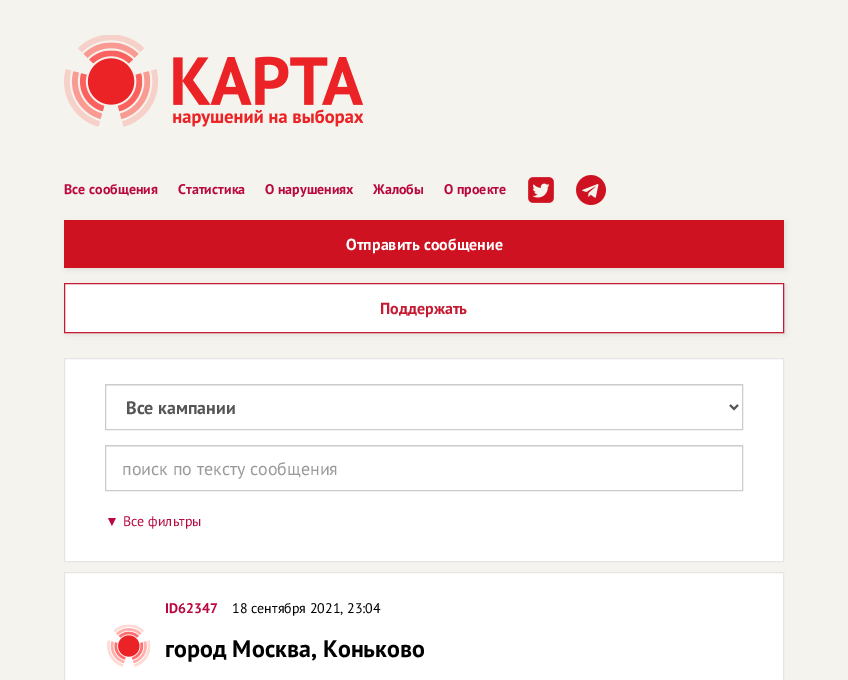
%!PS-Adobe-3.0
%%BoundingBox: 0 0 848 680
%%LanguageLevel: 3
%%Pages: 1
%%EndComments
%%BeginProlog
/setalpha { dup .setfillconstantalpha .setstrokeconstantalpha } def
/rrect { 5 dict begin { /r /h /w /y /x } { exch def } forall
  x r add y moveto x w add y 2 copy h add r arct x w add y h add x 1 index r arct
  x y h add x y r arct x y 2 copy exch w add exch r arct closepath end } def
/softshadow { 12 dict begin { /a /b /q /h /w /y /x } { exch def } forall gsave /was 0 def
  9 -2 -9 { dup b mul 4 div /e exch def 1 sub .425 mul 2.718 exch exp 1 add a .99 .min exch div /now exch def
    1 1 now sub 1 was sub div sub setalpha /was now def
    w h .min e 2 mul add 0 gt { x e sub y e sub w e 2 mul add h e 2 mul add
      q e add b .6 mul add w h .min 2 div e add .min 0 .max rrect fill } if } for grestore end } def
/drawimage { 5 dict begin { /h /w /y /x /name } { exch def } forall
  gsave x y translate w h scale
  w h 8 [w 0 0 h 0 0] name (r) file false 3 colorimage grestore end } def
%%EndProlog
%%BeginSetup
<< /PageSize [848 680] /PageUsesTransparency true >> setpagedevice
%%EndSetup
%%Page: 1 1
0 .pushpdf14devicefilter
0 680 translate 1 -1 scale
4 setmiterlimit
0.961 0.953 0.929 setrgbcolor
0 0 848 680 rectfill
(images/1.raw) 64 35 300 92 drawimage
(images/2.raw) 528 177 26 26 drawimage
(images/3.raw) 576 175 30 30 drawimage
0 setgray
66 222 720 48 0 2.5 0.07 softshadow
0.808 0.071 0.129 setrgbcolor
64 220 720 48 rectfill
0 setgray
66 285 720 50 0 2.5 0.07 softshadow
1 setgray
newpath 64.5 283.5 moveto 783.5 283.5 lineto 783.5 332.5 lineto 64.5 332.5 lineto closepath gsave fill grestore
0.769 0.106 0.2 setrgbcolor
stroke
1 setgray
newpath 64.5 358.5 moveto 783.5 358.5 lineto 783.5 561.5 lineto 64.5 561.5 lineto closepath gsave fill grestore
0.898 setgray
stroke
0.925 setgray
106 385 636 1 rectfill
0.8 setgray
105.5 384.5 637 45 rectstroke
0.333 setgray
2 setlinewidth
newpath 730 405 moveto 734 409 lineto 738 405 lineto stroke
0.925 setgray
106 446 636 1 rectfill
0.8 setgray
1 setlinewidth
105.5 445.5 637 45 rectstroke
1 setgray
newpath 64.5 572.5 moveto 783.5 572.5 lineto 783.5 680.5 lineto 64.5 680.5 lineto closepath gsave fill grestore
0.898 setgray
stroke
(images/4.raw) 107 624 44 43 drawimage
/PTSans-Bold [14 0 0 -14 0 0] selectfont
0.722 0.031 0.243 setrgbcolor
64 194 moveto (Все сообщения) show
178 194 moveto (Статистика) show
265 194 moveto (О нарушениях) show
373 194 moveto (Жалобы) show
444 194 moveto (О проекте) show
/PTSans-Bold [16 0 0 -16 0 0] selectfont
1 setgray
346 250 moveto (Отправить сообщение) show
0.769 0.106 0.2 setrgbcolor
380 314 moveto (Поддержать) show
/PTSans-Bold [18 0 0 -18 0 0] selectfont
0.333 setgray
126 414 moveto (Все кампании) show
/PTSans-Regular [18 0 0 -18 0 0] selectfont
0.6 setgray
122 475 moveto (поиск по тексту сообщения) show
/LiberationSans-Regular [14 0 0 -14 0 0] selectfont
0.722 0.031 0.243 setrgbcolor
105 526 moveto (▼) show
/PTSans-Regular [14 0 0 -14 0 0] selectfont
123 526 moveto (Все фильтры) show
/PTSans-Bold [14 0 0 -14 0 0] selectfont
165 613 moveto (ID62347) show
/PTSans-Regular [14 0 0 -14 0 0] selectfont
0 setgray
232 613 moveto (18 сентября 2021, 23:04) show
/PTSans-Bold [24 0 0 -24 0 0] selectfont
165 657 moveto (город Москва, Коньково) show
.poppdf14devicefilter showpage
%%EOF
